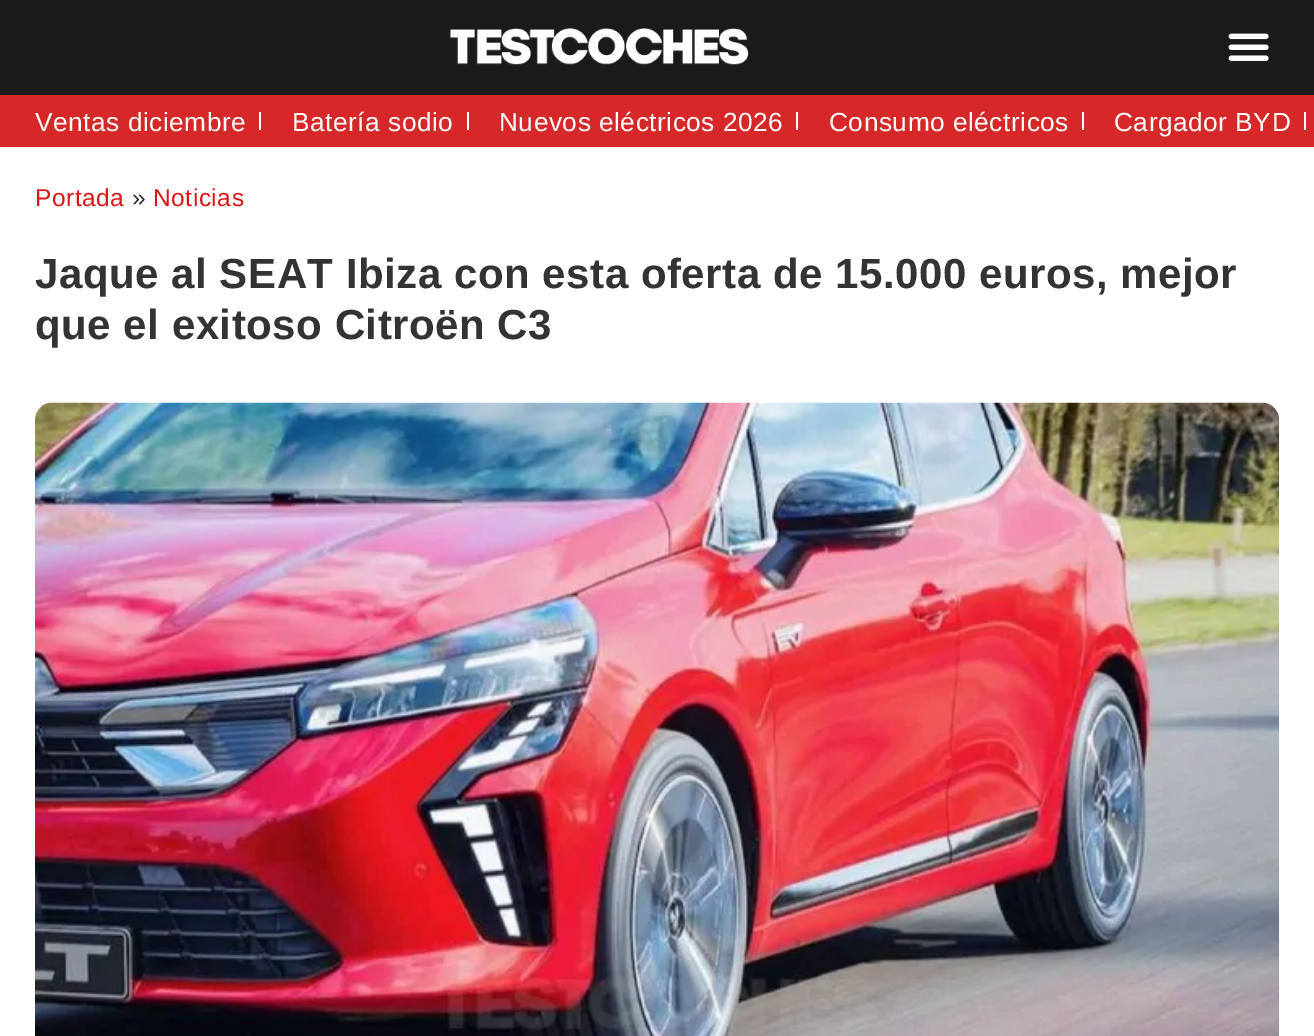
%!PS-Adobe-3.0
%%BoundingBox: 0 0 1314 1036
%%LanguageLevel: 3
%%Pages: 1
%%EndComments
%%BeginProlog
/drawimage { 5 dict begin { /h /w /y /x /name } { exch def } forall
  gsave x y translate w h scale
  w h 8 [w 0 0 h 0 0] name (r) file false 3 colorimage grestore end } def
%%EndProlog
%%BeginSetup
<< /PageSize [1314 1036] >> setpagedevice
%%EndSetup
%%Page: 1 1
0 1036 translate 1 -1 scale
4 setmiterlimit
1 setgray
0 0 1314 1036 rectfill
0.102 setgray
0 0 1314 95 rectfill
0.839 0.157 0.157 setrgbcolor
0 95 1314 52 rectfill
(images/1.raw) 449 28 300 38 drawimage
(images/2.raw) 1228 33 41 28 drawimage
1 setgray
259 112 2 18 rectfill
467 112 2 18 rectfill
796 112 2 18 rectfill
1082 112 2 18 rectfill
1304 112 2 18 rectfill
(images/3.raw) 35 402 1245 634 drawimage
/LiberationSans-Regular [26.25 0 0 -26.25 0 0] selectfont
35 131 moveto 0.53 0 (Ventas diciembre) ashow
292 131 moveto 0.53 0 (Batería sodio) ashow
499 131 moveto 0.53 0 (Nuevos eléctricos 2026) ashow
829 131 moveto 0.53 0 (Consumo eléctricos) ashow
1114 131 moveto 0.53 0 (Cargador BYD) ashow
/LiberationSans-Regular [24.5 0 0 -24.5 0 0] selectfont
0.863 0.086 0.086 setrgbcolor
35 206 moveto 0.53 0 (Portada) ashow
0.2 setgray
132 206 moveto 0.53 0 (») ashow
0.863 0.086 0.086 setrgbcolor
153 206 moveto 0.53 0 (Noticias) ashow
/LiberationSans-Bold [42 0 0 -42 0 0] selectfont
0.2 setgray
35 288 moveto 0.53 0 (Jaque al SEAT Ibiza con esta oferta de 15.000 euros, mejor) ashow
35 339 moveto 0.53 0 (que el exitoso Citroën C3) ashow
showpage
%%EOF
